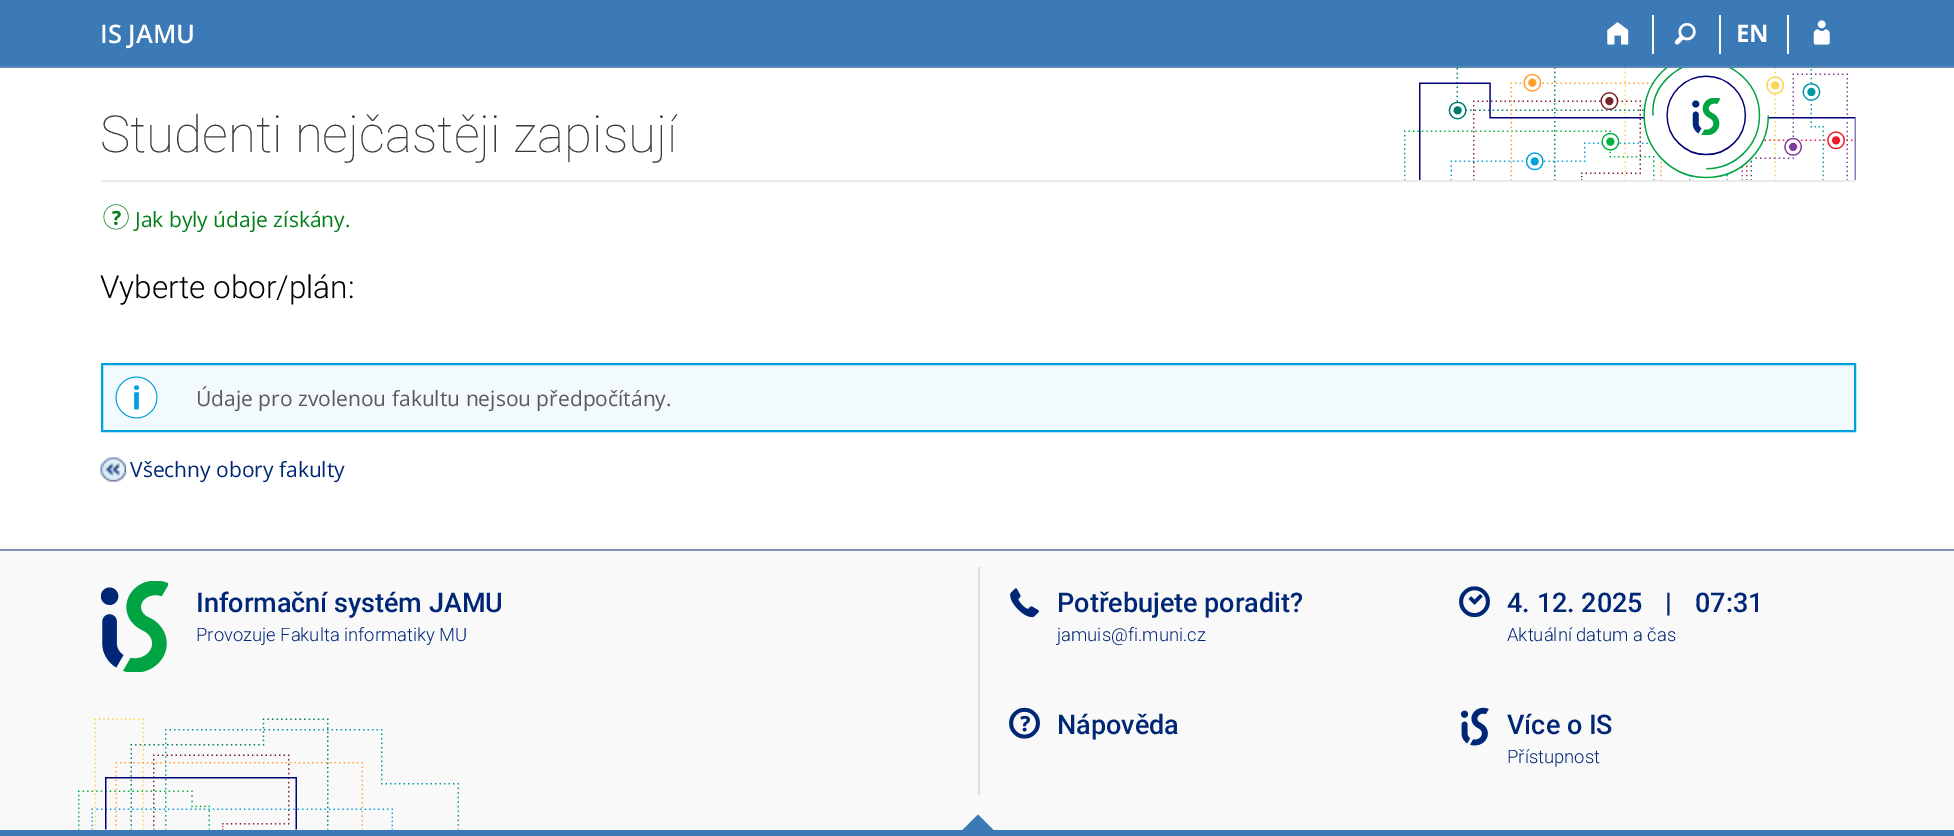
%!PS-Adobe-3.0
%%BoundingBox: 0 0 1954 836
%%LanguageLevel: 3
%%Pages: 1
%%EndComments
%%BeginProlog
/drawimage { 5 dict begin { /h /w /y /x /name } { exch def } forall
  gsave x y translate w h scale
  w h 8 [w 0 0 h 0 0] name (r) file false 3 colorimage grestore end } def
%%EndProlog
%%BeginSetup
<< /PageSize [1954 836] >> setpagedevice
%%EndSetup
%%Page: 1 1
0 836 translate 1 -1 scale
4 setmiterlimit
1 setgray
0 0 1954 836 rectfill
0.235 0.478 0.718 setrgbcolor
0 0 1954 66 rectfill
0.361 0.533 0.714 setrgbcolor
0 66 1954 2 rectfill
1 setgray
1652 15 2 39 rectfill
(images/1.raw) 1607 22 22 23 drawimage
1719 15 2 39 rectfill
(images/2.raw) 1674 23 22 22 drawimage
1787 15 2 39 rectfill
(images/3.raw) 1813 20 17 25 drawimage
(images/4.raw) 1404 68 452 112 drawimage
(images/5.raw) 1692 98 29 37 drawimage
0.918 setgray
101 180 1755 2 rectfill
(images/6.raw) 103 204 26 26 drawimage
0.949 0.98 0.992 setrgbcolor
newpath 102 364 moveto 1855 364 lineto 1855 431 lineto 102 431 lineto closepath gsave fill grestore
0 0.631 0.871 setrgbcolor
2 setlinewidth
stroke
1 setgray
newpath 137 398 21 0 360 arc closepath fill
(images/7.raw) 115 376 43 43 drawimage
(images/8.raw) 100 457 26 25 drawimage
0.976 setgray
0 551 1954 279 rectfill
0.49 0.565 0.722 setrgbcolor
0 549 1954 2 rectfill
(images/9.raw) 78 718 381 112 drawimage
(images/10.raw) 101 581 67 91 drawimage
0.867 setgray
978 567 2 228 rectfill
(images/11.raw) 1010 588 29 30 drawimage
(images/12.raw) 1009 707 31 32 drawimage
(images/13.raw) 1459 586 31 32 drawimage
(images/14.raw) 1460 707 29 39 drawimage
0.235 0.478 0.718 setrgbcolor
0 830 1954 6 rectfill
newpath 994.5 831 moveto 961.5 831 lineto 978 814.5 lineto closepath fill
/OpenSans-SemiBold [25.5 0 0 -25.5 0 0] selectfont
1 setgray
100 43 moveto (IS JAMU) show
/OpenSans-Bold [24 0 0 -24 0 0] selectfont
1736 42 moveto (EN) show
/Roboto-Thin [51 0 0 -51 0 0] selectfont
0.227 setgray
100 152 moveto (Studenti nejčastěji zapisují) show
/OpenSans-Regular [21 0 0 -21 0 0] selectfont
0.012 0.498 0.102 setrgbcolor
135 227 moveto (Jak byly údaje získány.) show
/Roboto-Light [31.5 0 0 -31.5 0 0] selectfont
0 setgray
100 298 moveto (Vyberte obor/plán:) show
/OpenSans-Regular [21 0 0 -21 0 0] selectfont
0.353 setgray
196 406 moveto (Údaje pro zvolenou fakultu nejsou předpočítány.) show
0 0.153 0.463 setrgbcolor
130 477 moveto (Všechny obory fakulty) show
/Roboto-Medium [27 0 0 -27 0 0] selectfont
196 612 moveto (Informační systém JAMU) show
/Roboto-Light [18.4 0 0 -18.4 0 0] selectfont
196 641 moveto (Provozuje Fakulta informatiky MU) show
/Roboto-Medium [27 0 0 -27 0 0] selectfont
1057 612 moveto (Potřebujete poradit?) show
/Roboto-Light [18.4 0 0 -18.4 0 0] selectfont
1057 641 moveto (jamuis@fi.muni.cz) show
/Roboto-Medium [27 0 0 -27 0 0] selectfont
1057 734 moveto (Nápověda) show
1507 612 moveto (4. 12. 2025) show
1665 612 moveto (|) show
1695 612 moveto (07:31) show
/Roboto-Light [18.4 0 0 -18.4 0 0] selectfont
1507 641 moveto (Aktuální datum a čas) show
/Roboto-Medium [27 0 0 -27 0 0] selectfont
1507 734 moveto (Více o IS) show
/Roboto-Light [18.4 0 0 -18.4 0 0] selectfont
1507 763 moveto (Přístupnost) show
showpage
%%EOF
